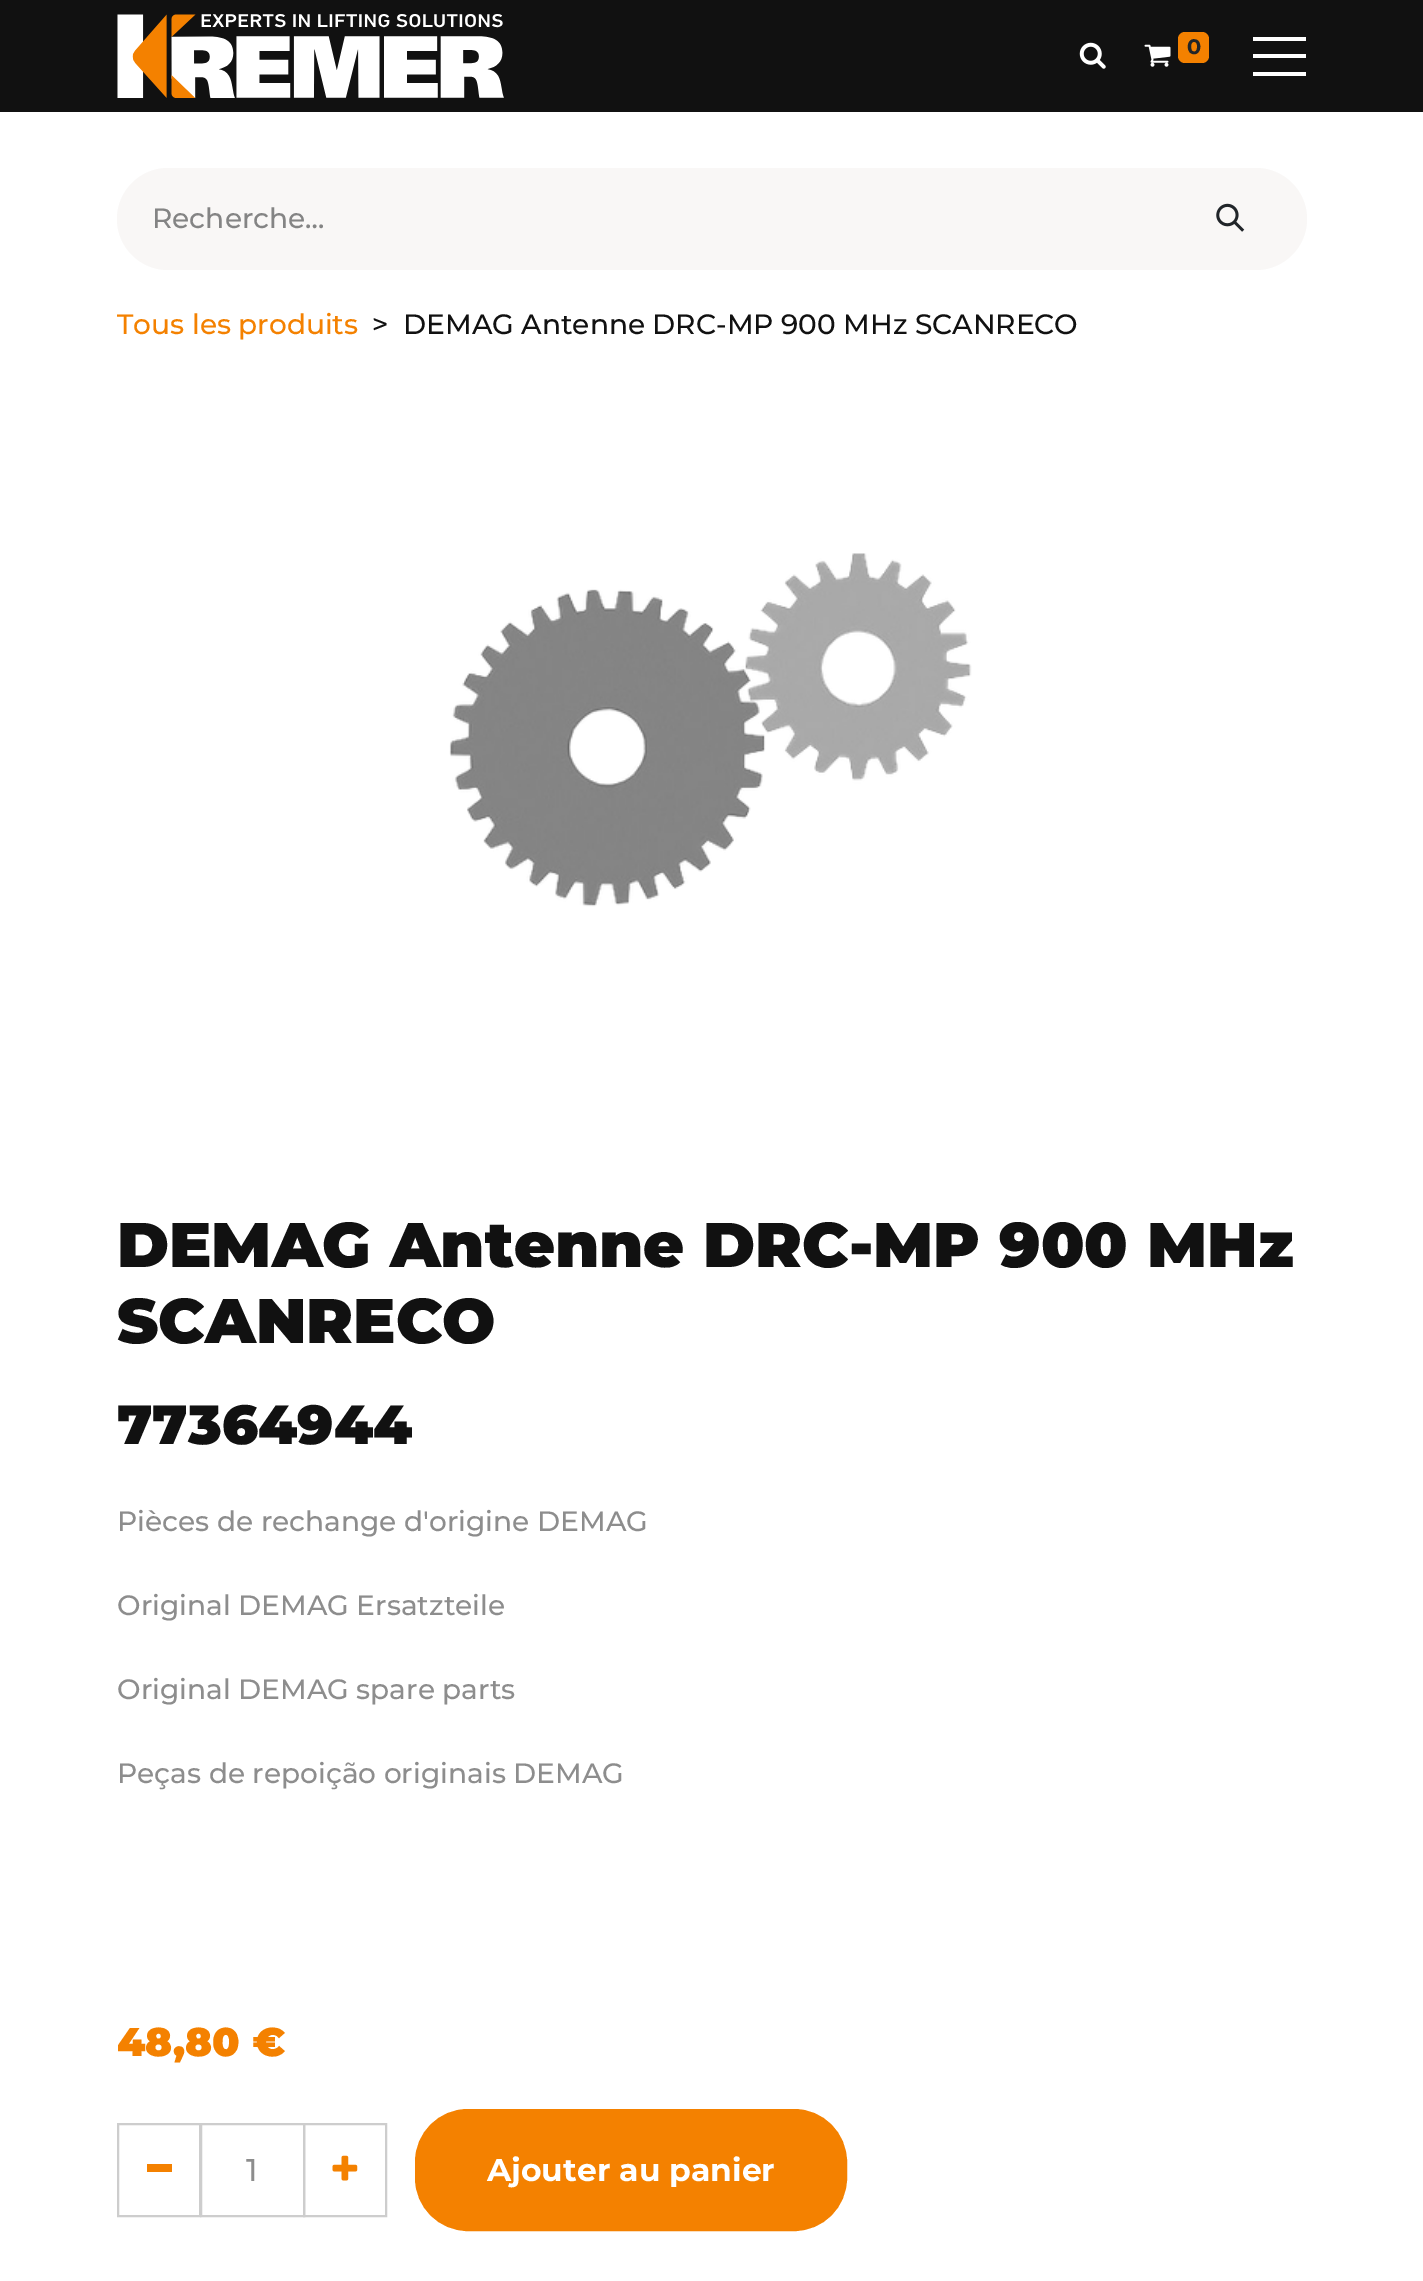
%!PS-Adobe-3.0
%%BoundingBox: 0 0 1423 2281
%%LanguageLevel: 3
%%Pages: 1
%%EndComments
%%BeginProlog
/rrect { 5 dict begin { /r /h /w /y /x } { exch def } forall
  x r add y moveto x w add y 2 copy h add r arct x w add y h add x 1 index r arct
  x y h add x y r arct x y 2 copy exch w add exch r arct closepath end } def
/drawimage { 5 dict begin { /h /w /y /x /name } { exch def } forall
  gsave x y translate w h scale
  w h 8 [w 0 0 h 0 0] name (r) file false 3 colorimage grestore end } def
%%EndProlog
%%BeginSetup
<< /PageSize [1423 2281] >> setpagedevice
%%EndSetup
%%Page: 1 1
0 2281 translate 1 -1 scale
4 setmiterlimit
1 setgray
0 0 1423 2281 rectfill
0.067 setgray
0 0 1423 112 rectfill
(images/1.raw) 117 14 387 84 drawimage
(images/2.raw) 1079 42 27 27 drawimage
(images/3.raw) 1144 44 27 23 drawimage
0.957 0.506 0 setrgbcolor
1178 32 31 31 7 rrect fill
1 setgray
1253 54 53 4 rectfill
1253 37 53 4 rectfill
1253 72 53 4 rectfill
0.976 0.969 0.965 setrgbcolor
newpath 168 168 moveto 1155 168 lineto 1155 270 lineto 168 270 lineto 140 270 117 247 117 219 curveto 117 191 140 168 168 168 curveto closepath fill
newpath 1153 168 moveto 1256 168 lineto 1284 168 1307 191 1307 219 curveto 1307 247 1284 270 1256 270 curveto 1153 270 lineto closepath fill
(images/4.raw) 1216 203 29 29 drawimage
(images/5.raw) 449 553 523 354 drawimage
0.804 setgray
2 setlinewidth
201 2124 103 92 rectstroke
118 2124 82 92 rectstroke
0.957 0.506 0 setrgbcolor
147 2164 25 8 rectfill
0.804 setgray
304 2124 82 92 rectstroke
(images/6.raw) 332 2155 26 26 drawimage
0.957 0.506 0 setrgbcolor
416 2110 430 120 52 rrect gsave fill grestore
stroke
/Montserrat-Bold [21 0 0 -21 0 0] selectfont
0.129 0.145 0.161 setrgbcolor
1187 54 moveto (0) show
/Montserrat-Medium [28 0 0 -28 0 0] selectfont
0.518 setgray
152 228 moveto (Recherche…) show
0.957 0.506 0 setrgbcolor
117 334 moveto (Tous les produits) show
0.067 setgray
372 334 moveto (>) show
403 334 moveto (DEMAG Antenne DRC-MP 900 MHz SCANRECO) show
/Montserrat-Black [63 0 0 -63 0 0] selectfont
117 1267 moveto (DEMAG Antenne DRC-MP 900 MHz) show
117 1343 moveto (SCANRECO) show
/Montserrat-Black [55 0 0 -55 0 0] selectfont
117 1444 moveto (77364944) show
/Montserrat-Medium [28 0 0 -28 0 0] selectfont
0.553 setgray
117 1531 moveto (Pièces de rechange d'origine DEMAG) show
117 1615 moveto (Original DEMAG Ersatzteile) show
117 1699 moveto (Original DEMAG spare parts) show
117 1783 moveto (Peças de repoição originais DEMAG) show
/Montserrat-Black [40 0 0 -40 0 0] selectfont
0.957 0.506 0 setrgbcolor
117 2056 moveto (48,80 €) show
/Montserrat-Medium [31.5 0 0 -31.5 0 0] selectfont
0.553 setgray
246 2181 moveto (1) show
/Montserrat-Bold [31.5 0 0 -31.5 0 0] selectfont
1 setgray
487 2181 moveto (Ajouter au panier) show
showpage
%%EOF
